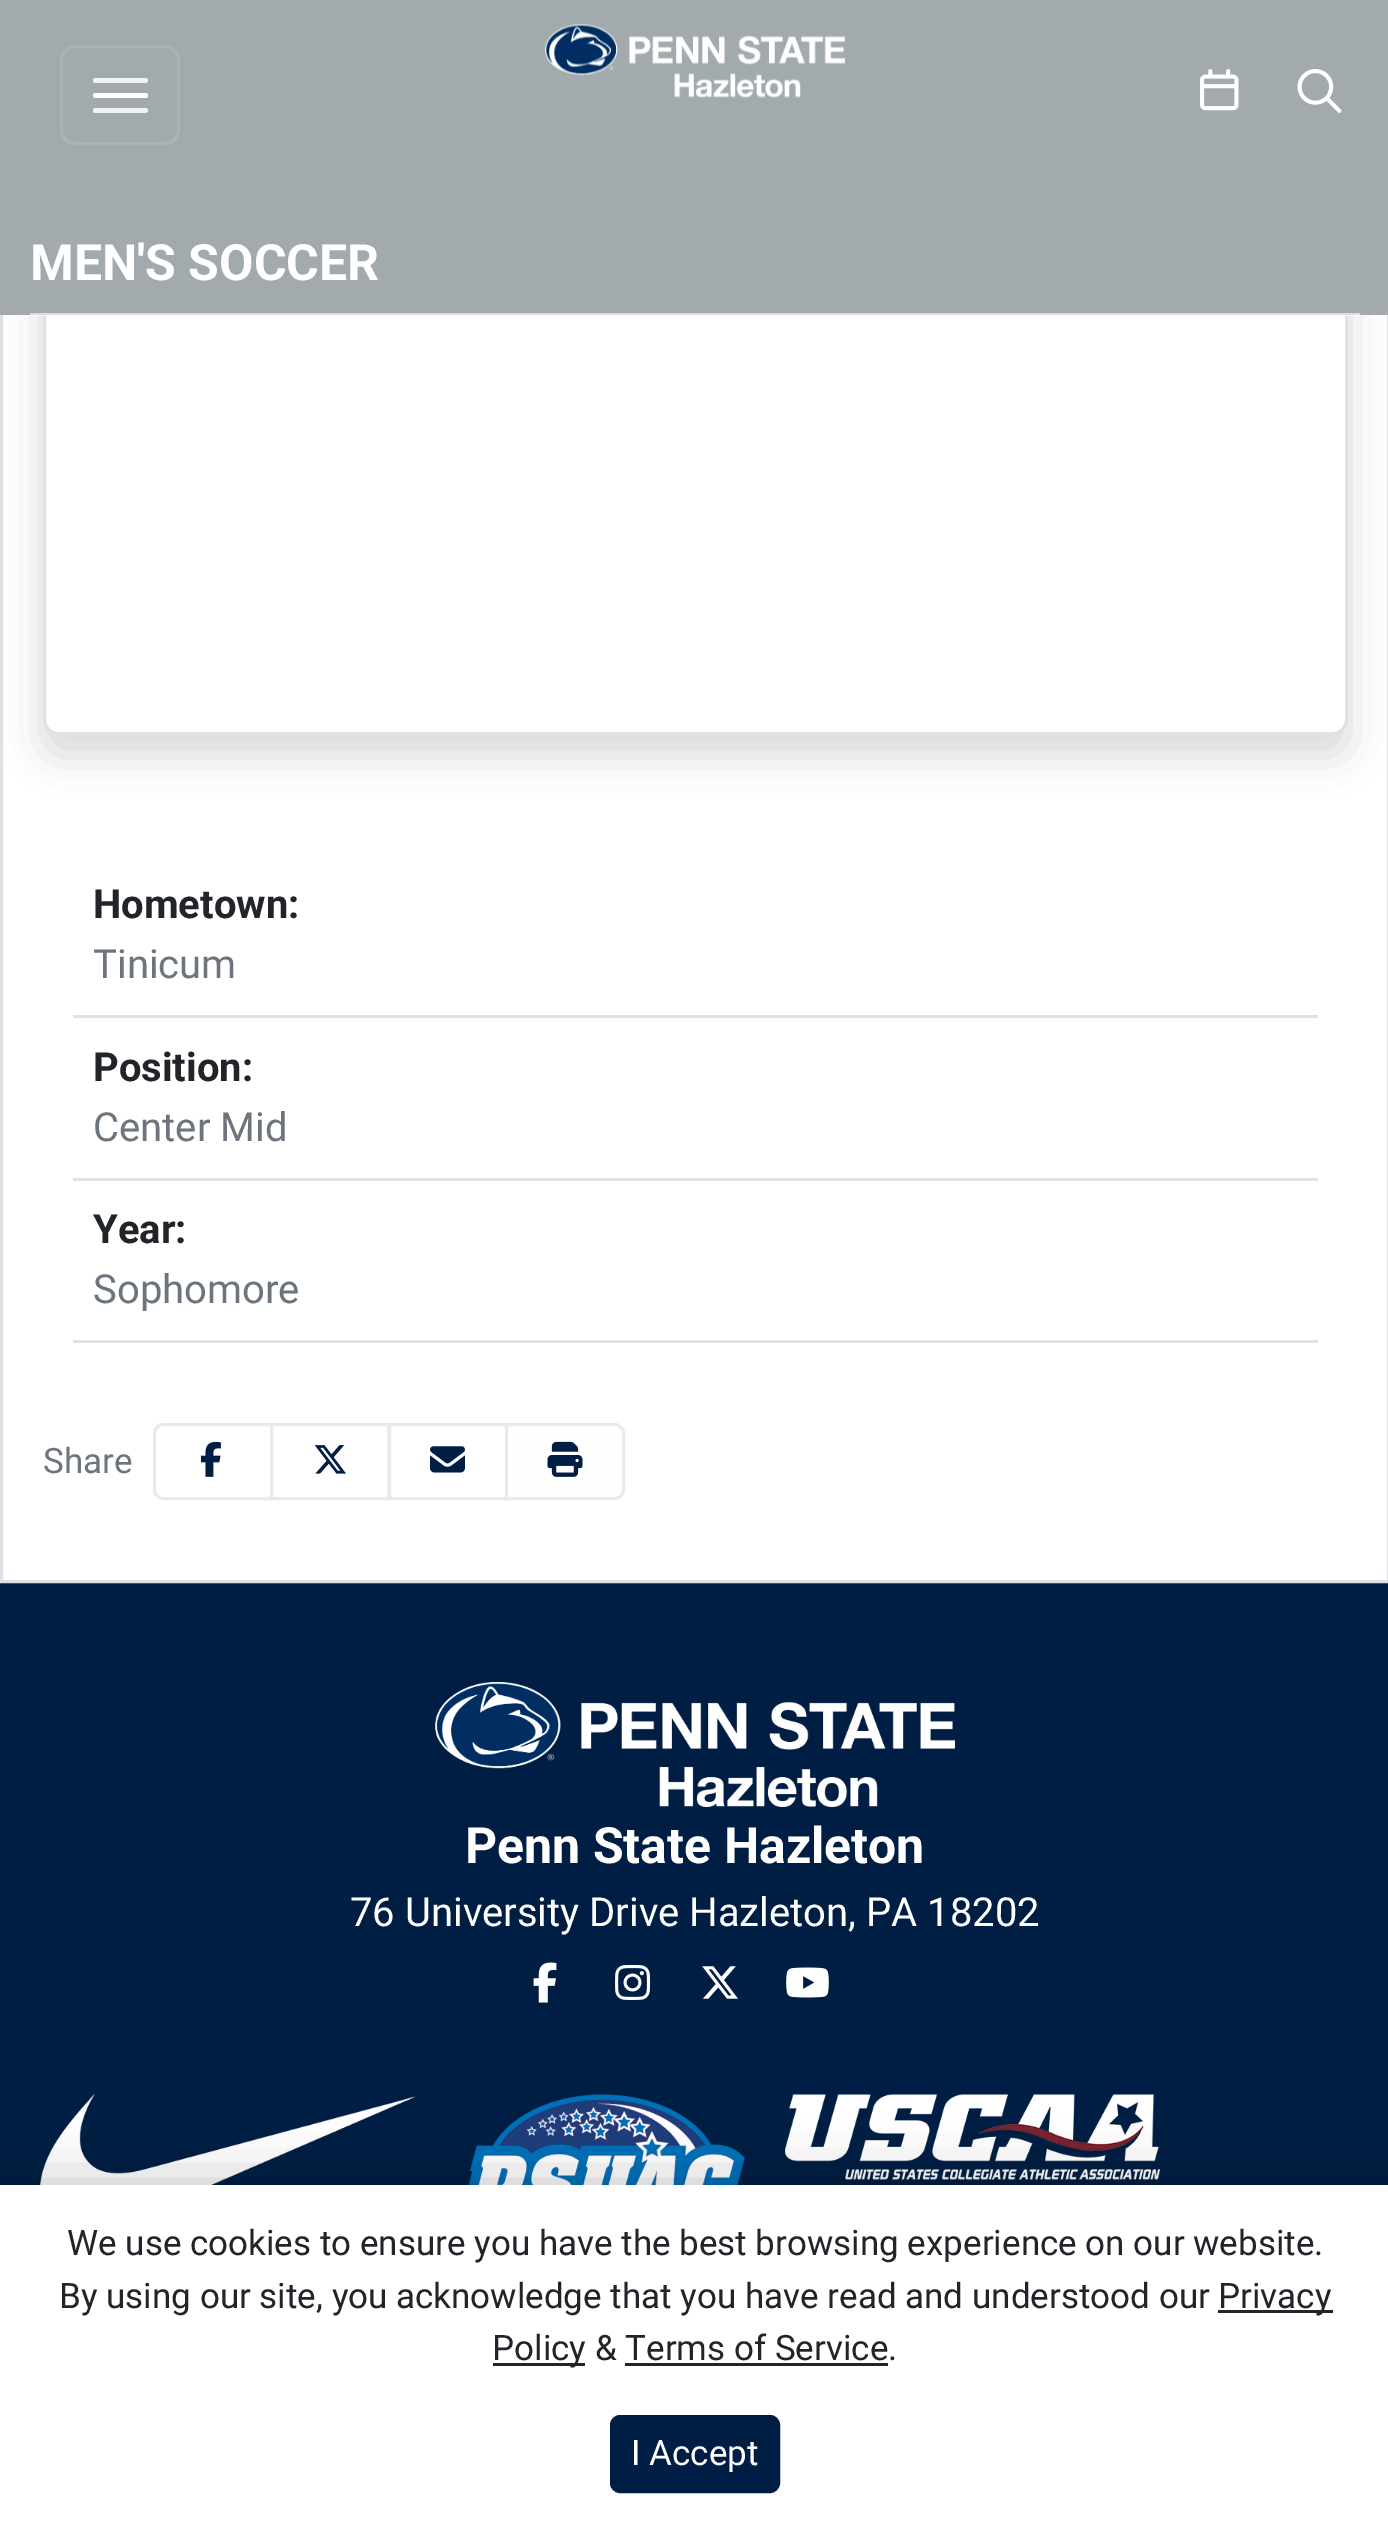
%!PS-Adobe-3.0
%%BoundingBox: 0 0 1388 2524
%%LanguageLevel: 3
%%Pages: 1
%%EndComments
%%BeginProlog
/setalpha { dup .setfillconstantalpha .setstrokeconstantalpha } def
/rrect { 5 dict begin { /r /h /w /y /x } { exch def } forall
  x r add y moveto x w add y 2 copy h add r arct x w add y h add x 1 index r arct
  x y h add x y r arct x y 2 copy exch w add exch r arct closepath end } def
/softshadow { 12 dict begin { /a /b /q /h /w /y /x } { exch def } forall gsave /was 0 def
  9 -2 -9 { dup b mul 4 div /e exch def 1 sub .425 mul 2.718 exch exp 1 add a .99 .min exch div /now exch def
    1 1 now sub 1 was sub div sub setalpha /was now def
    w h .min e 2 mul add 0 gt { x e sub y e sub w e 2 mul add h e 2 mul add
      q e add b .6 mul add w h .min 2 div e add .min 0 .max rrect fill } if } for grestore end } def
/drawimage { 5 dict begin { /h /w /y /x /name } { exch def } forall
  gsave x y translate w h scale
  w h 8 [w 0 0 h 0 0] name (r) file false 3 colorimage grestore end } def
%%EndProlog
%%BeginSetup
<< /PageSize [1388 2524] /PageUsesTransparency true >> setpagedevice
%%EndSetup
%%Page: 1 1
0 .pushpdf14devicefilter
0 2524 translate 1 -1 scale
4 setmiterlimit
0 0.118 0.267 setrgbcolor
0 0 1388 2524 rectfill
1 setgray
3 315 1384 1265 rectfill
0.871 0.886 0.902 setrgbcolor
3 setlinewidth
1.5 -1.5 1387 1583 rectstroke
gsave
newpath 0 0 moveto 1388 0 lineto 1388 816 lineto 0 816 lineto closepath 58 -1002 moveto 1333 -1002 lineto 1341.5 -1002 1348 -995.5 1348 -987 curveto 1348 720 lineto 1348 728.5 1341.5 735 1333 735 curveto 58 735 lineto 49.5 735 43 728.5 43 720 curveto 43 -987 lineto 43 -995.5 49.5 -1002 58 -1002 curveto closepath eoclip newpath
0 setgray
43 -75 1305 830 15 20 0.15 softshadow
grestore
44.5 -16.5 1302 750 13.5 rrect stroke
0.635 0.667 0.678 setrgbcolor
0 0 1388 315 rectfill
0.671 0.702 0.71 setrgbcolor
61.5 46.5 117 97 13.5 rrect stroke
0.945 0.949 0.953 setrgbcolor
93 78 55 5 2.5 rrect fill
1 setgray
93 93 55 5 2.5 rrect fill
0.945 0.949 0.953 setrgbcolor
93 108 55 5 2.5 rrect fill
(images/1.raw) 545 24 300 74 drawimage
(images/2.raw) 1200 69 39 42 drawimage
(images/3.raw) 1297 69 45 44 drawimage
0.6 setalpha
1 setgray
30 313 1330 3 rectfill
1 setalpha
0.871 0.886 0.902 setrgbcolor
73 1015 1245 3 rectfill
73 1178 1245 3 rectfill
73 1340 1245 3 rectfill
0.918 setgray
newpath 163 1424.5 moveto 271.5 1424.5 lineto 271.5 1498.5 lineto 163 1498.5 lineto 158.5 1498.5 154.5 1494.5 154.5 1490 curveto 154.5 1433 lineto 154.5 1428.5 158.5 1424.5 163 1424.5 curveto closepath stroke
(images/4.raw) 200 1441 21 36 drawimage
271.5 1424.5 117 74 rectstroke
(images/5.raw) 314 1445 32 29 drawimage
389.5 1424.5 117 74 rectstroke
(images/6.raw) 430 1446 35 27 drawimage
0.996 setgray
newpath 506.5 1424.5 moveto 615 1424.5 lineto 619.5 1424.5 623.5 1428.5 623.5 1433 curveto 623.5 1490 lineto 623.5 1494.5 619.5 1498.5 615 1498.5 curveto 506.5 1498.5 lineto closepath gsave fill grestore
0.918 setgray
stroke
(images/7.raw) 547 1441 36 36 drawimage
(images/8.raw) 435 1682 520 125 drawimage
(images/9.raw) 533 1962 24 41 drawimage
(images/10.raw) 615 1964 36 36 drawimage
(images/11.raw) 702 1966 36 33 drawimage
(images/12.raw) 786 1967 43 31 drawimage
(images/13.raw) 40 2094 375 91 drawimage
(images/14.raw) 468 2094 277 91 drawimage
(images/15.raw) 785 2094 375 86 drawimage
0 setgray
0 2185 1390 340 0 30 0.25 softshadow
1 setgray
0 2185 1388 339 rectfill
0.129 0.145 0.161 setrgbcolor
1218 2310 115 3 rectfill
493 2363 92 3 rectfill
625 2363 263 3 rectfill
0 0.118 0.267 setrgbcolor
611.5 2416.5 167 75 8.5 rrect gsave fill grestore
stroke
/Roboto-Bold [50 0 0 -50 0 0] selectfont
1 setgray
30 280 moveto (MEN'S SOCCER) show
/Roboto-Bold [40 0 0 -40 0 0] selectfont
0.129 0.145 0.161 setrgbcolor
93 918 moveto (Hometown:) show
/Roboto-Regular [40 0 0 -40 0 0] selectfont
0.424 0.459 0.49 setrgbcolor
93 978 moveto (Tinicum) show
/Roboto-Bold [40 0 0 -40 0 0] selectfont
0.129 0.145 0.161 setrgbcolor
93 1081 moveto (Position:) show
/Roboto-Regular [40 0 0 -40 0 0] selectfont
0.424 0.459 0.49 setrgbcolor
93 1141 moveto (Center Mid) show
/Roboto-Bold [40 0 0 -40 0 0] selectfont
0.129 0.145 0.161 setrgbcolor
93 1243 moveto (Year:) show
/Roboto-Regular [40 0 0 -40 0 0] selectfont
0.424 0.459 0.49 setrgbcolor
93 1303 moveto (Sophomore) show
/Roboto-Regular [35 0 0 -35 0 0] selectfont
43 1473 moveto (Share) show
/Roboto-Bold [50 0 0 -50 0 0] selectfont
1 setgray
465 1863 moveto (Penn State Hazleton) show
/Roboto-Regular [40 0 0 -40 0 0] selectfont
350 1926 moveto (76 University Drive Hazleton, PA 18202) show
/Roboto-Regular [35 0 0 -35 0 0] selectfont
0.129 0.145 0.161 setrgbcolor
67 2255 moveto (We use cookies to ensure you have the best browsing experience on our website.) show
59 2308 moveto (By using our site, you acknowledge that you have read and understood our) show
1218 2308 moveto (Privacy) show
492 2360 moveto (Policy & Terms of Service.) show
1 setgray
631 2465 moveto (I Accept) show
.poppdf14devicefilter showpage
%%EOF
